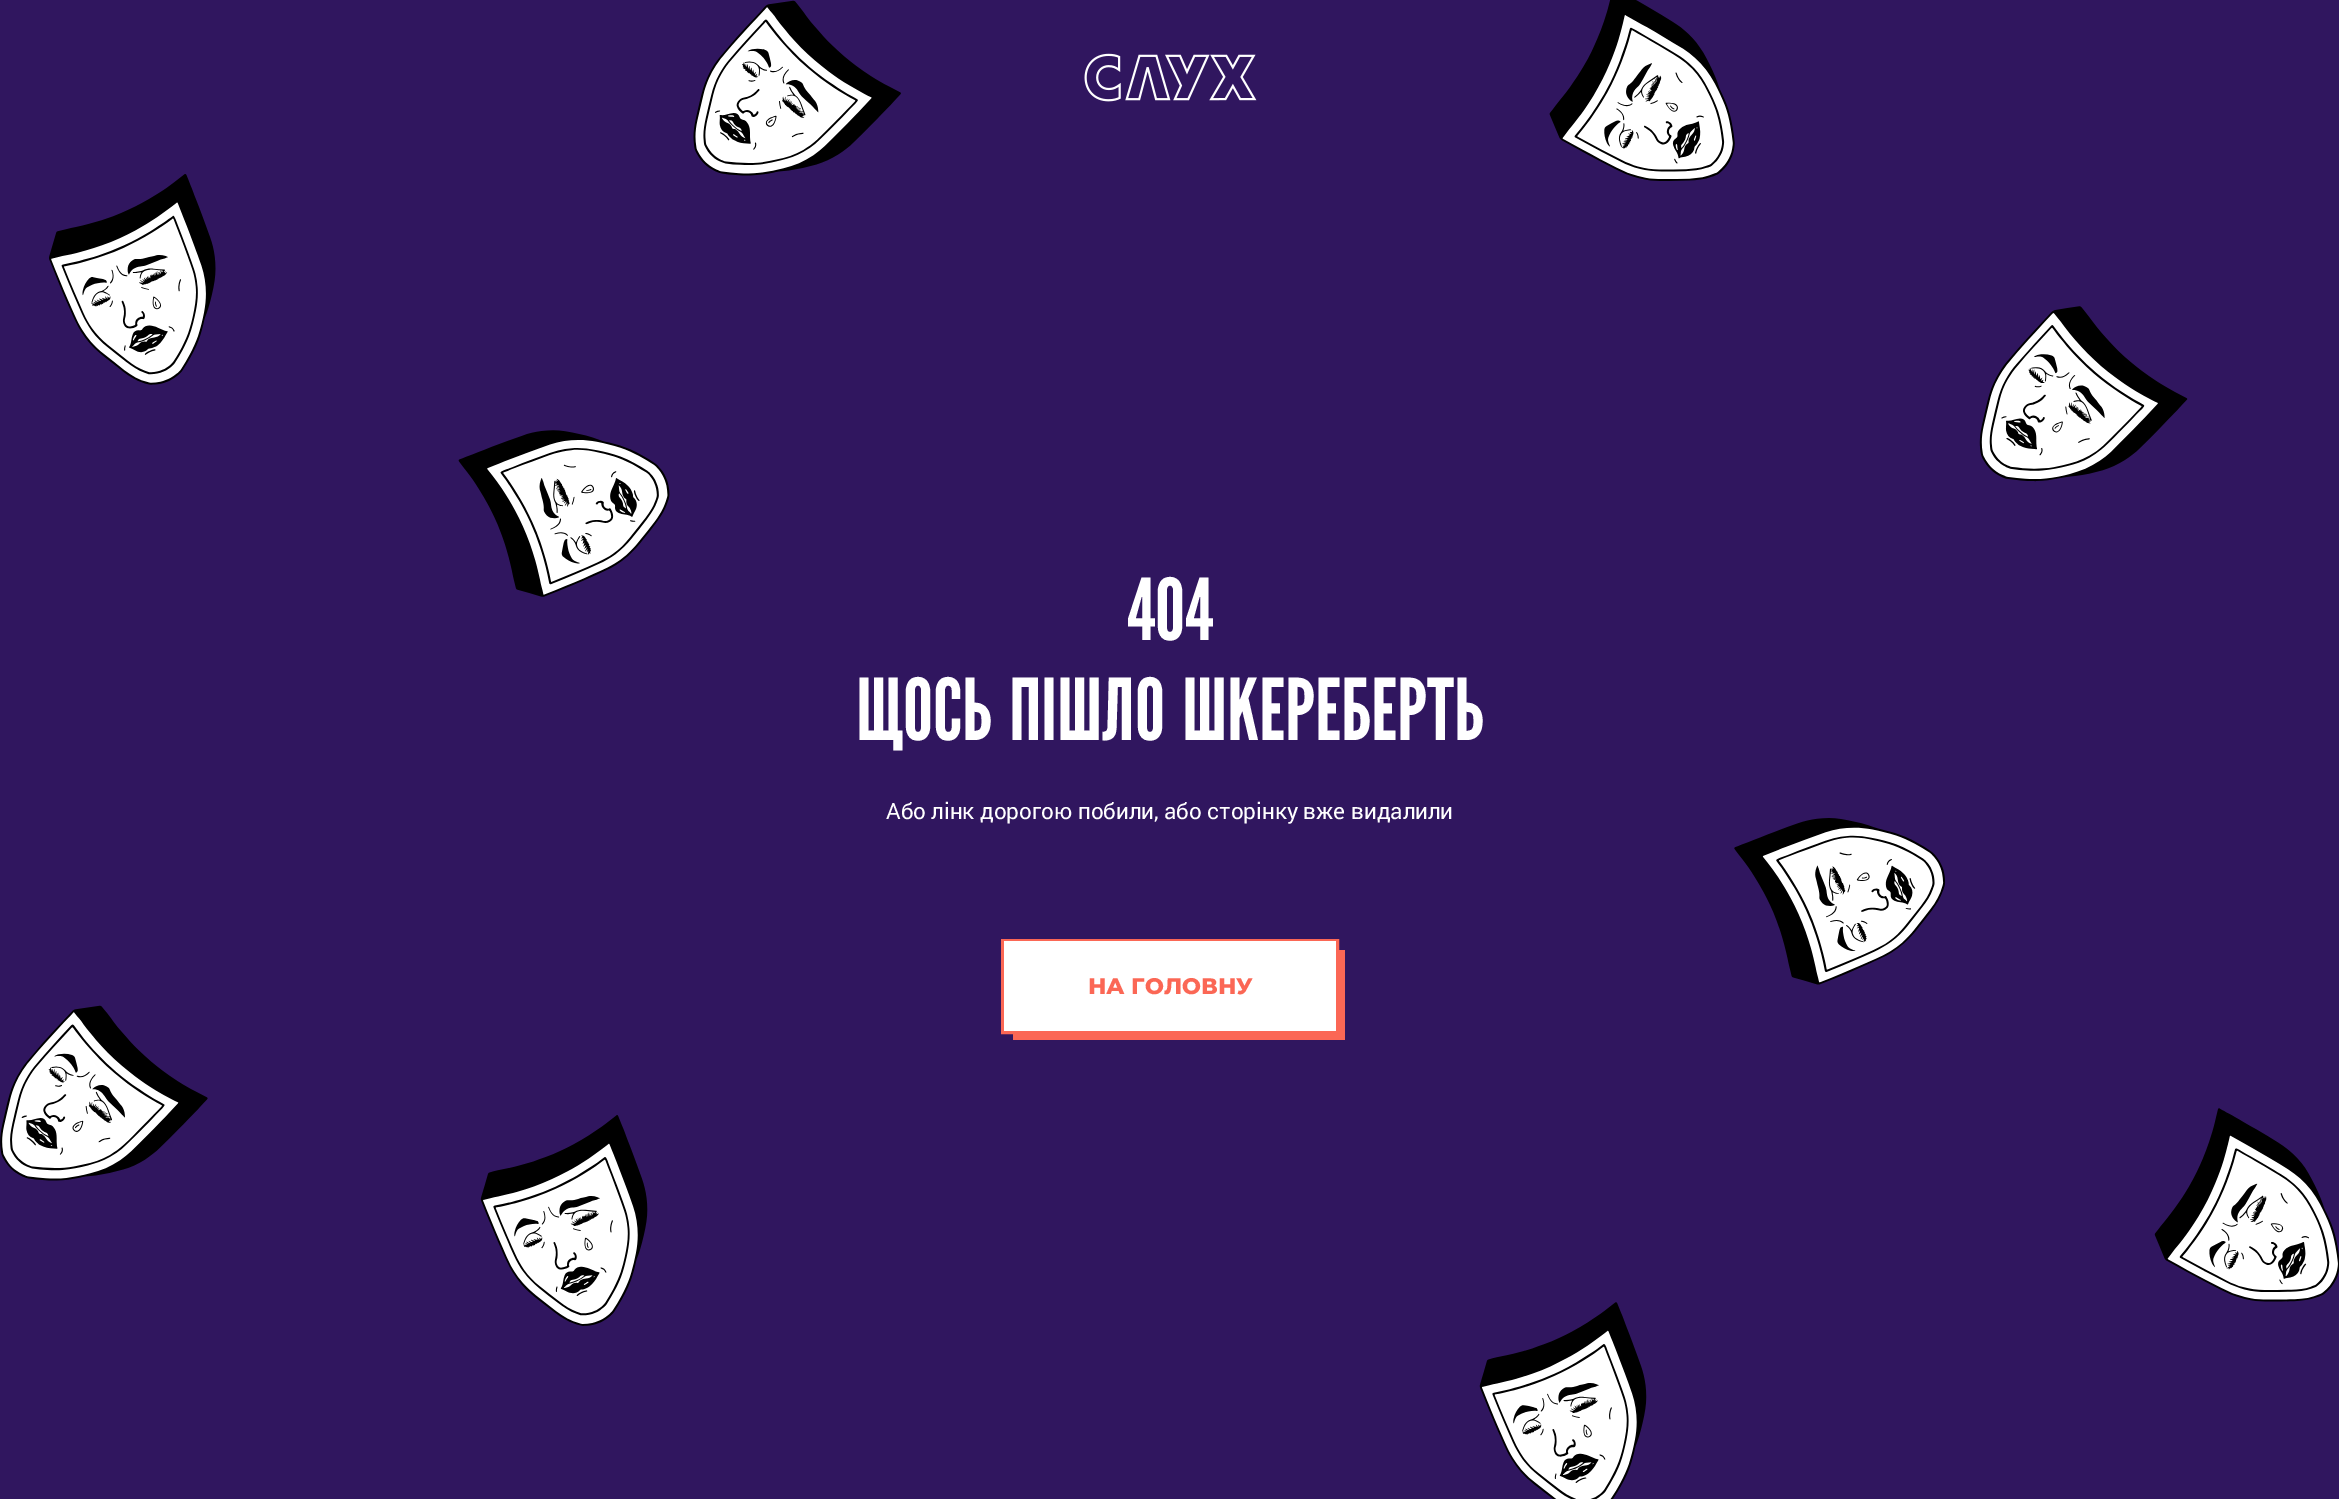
%!PS-Adobe-3.0
%%BoundingBox: 0 0 2339 1499
%%LanguageLevel: 3
%%Pages: 1
%%EndComments
%%BeginProlog
/drawimage { 5 dict begin { /h /w /y /x /name } { exch def } forall
  gsave x y translate w h scale
  w h 8 [w 0 0 h 0 0] name (r) file false 3 colorimage grestore end } def
%%EndProlog
%%BeginSetup
<< /PageSize [2339 1499] >> setpagedevice
%%EndSetup
%%Page: 1 1
0 1499 translate 1 -1 scale
4 setmiterlimit
0.188 0.086 0.373 setrgbcolor
0 0 2339 1499 rectfill
(images/1.raw) 0 0 2339 1499 drawimage
(images/2.raw) 1084 53 173 49 drawimage
0.984 0.404 0.333 setrgbcolor
3 setlinewidth
1002.5 940.5 335 92 rectstroke
1013 950 332 90 rectfill
1 setgray
1004 941 332 90 rectfill
/LeagueGothic-Regular [85 0 0 -85 0 0] selectfont
1127 640 moveto (404) show
856 740 moveto (ЩОСЬ ПІШЛО ШКЕРЕБЕРТЬ) show
/Roboto-Regular [22.5 0 0 -22.5 0 0] selectfont
886 819 moveto (Або лінк дорогою побили, або сторінку вже видалили) show
/Montserrat-ExtraBold [22.5 0 0 -22.5 0 0] selectfont
0.984 0.404 0.333 setrgbcolor
1088 994 moveto (НА ГОЛОВНУ) show
showpage
%%EOF
